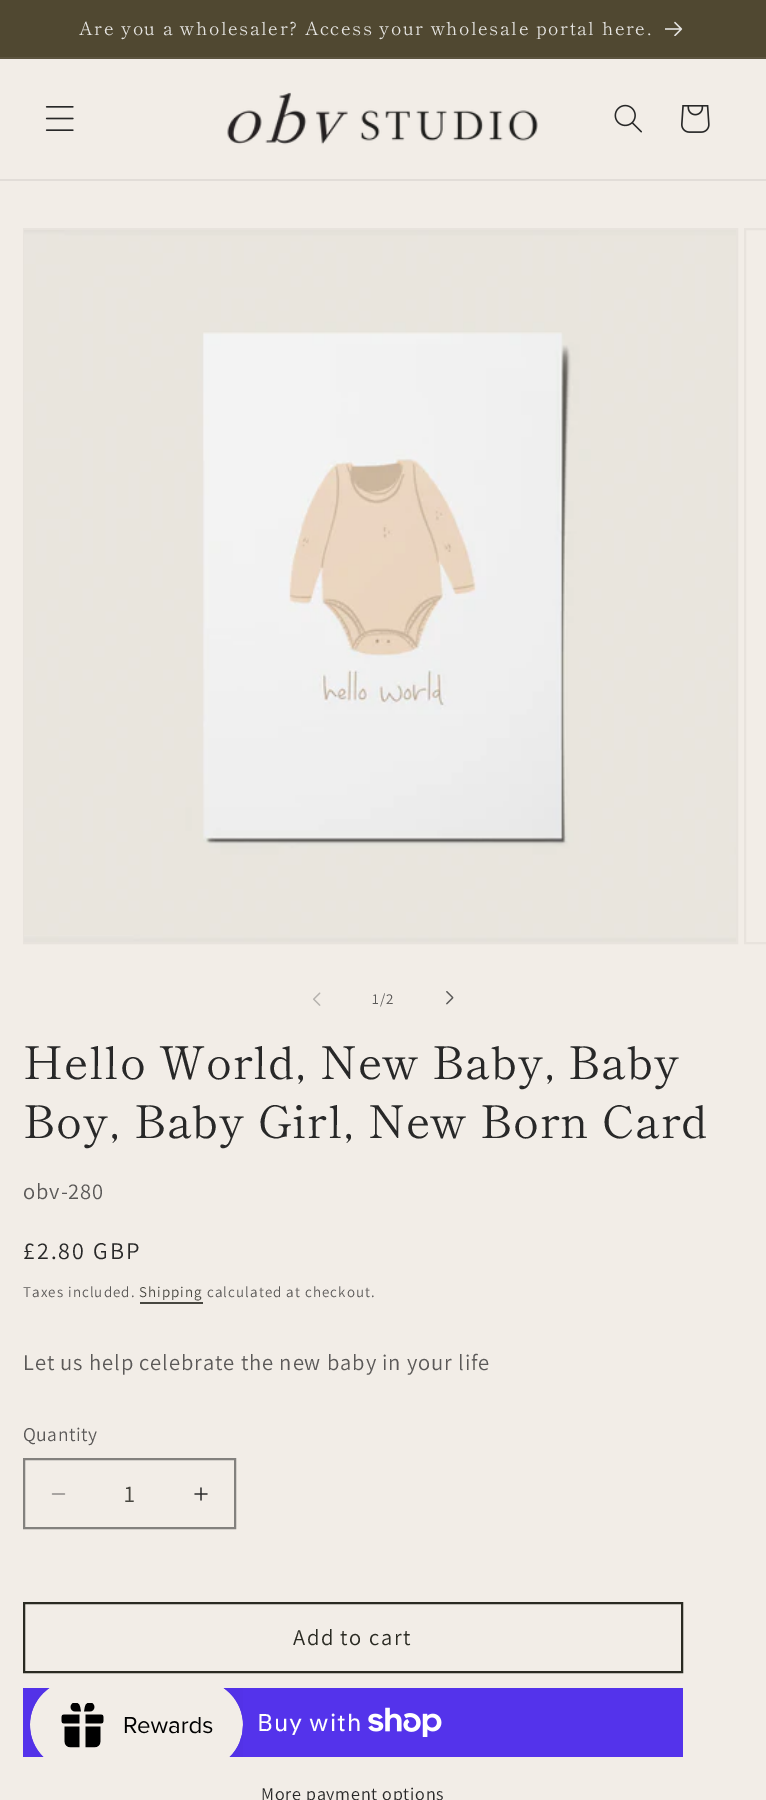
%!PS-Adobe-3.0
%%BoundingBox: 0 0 766 1800
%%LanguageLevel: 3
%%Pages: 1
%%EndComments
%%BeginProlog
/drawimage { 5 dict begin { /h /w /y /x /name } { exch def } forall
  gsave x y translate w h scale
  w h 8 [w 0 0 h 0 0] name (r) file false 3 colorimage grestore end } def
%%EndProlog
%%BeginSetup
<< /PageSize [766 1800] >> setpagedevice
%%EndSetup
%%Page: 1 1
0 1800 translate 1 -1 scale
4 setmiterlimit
0.949 0.929 0.906 setrgbcolor
0 0 766 1800 rectfill
0.314 0.282 0.192 setrgbcolor
0 0 766 57 rectfill
0.361 0.329 0.247 setrgbcolor
0 57 766 2 rectfill
(images/1.raw) 665 21 18 15 drawimage
0.886 0.867 0.847 setrgbcolor
0 179 766 2 rectfill
(images/2.raw) 45 106 29 25 drawimage
(images/3.raw) 227 92 311 53 drawimage
(images/4.raw) 614 104 28 29 drawimage
(images/5.raw) 681 105 29 28 drawimage
0.91 0.89 0.867 setrgbcolor
2 setlinewidth
24 229 713 714 rectstroke
(images/6.raw) 24 230 712 712 drawimage
745 229 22 714 rectstroke
(images/7.raw) 313 992 8 14 drawimage
(images/8.raw) 446 991 8 14 drawimage
0.282 0.278 0.251 setrgbcolor
140 1302 63 2 rectfill
(images/9.raw) 51 1493 15 2 drawimage
(images/10.raw) 194 1487 14 14 drawimage
0.514 0.506 0.494 setrgbcolor
24 1459 211 69 rectstroke
0.165 0.165 0.133 setrgbcolor
24 1603 658 69 rectstroke
0.329 0.2 0.922 setrgbcolor
23 1688 660 69 rectfill
(images/11.raw) 368 1707 74 30 drawimage
(images/12.raw) 30 1688 213 69 drawimage
/ShipporiMincho-Regular [18 0 0 -18 0 0] selectfont
0.898 0.894 0.882 setrgbcolor
79 35 moveto 1.5 0 (Are you a wholesaler? Access your wholesale portal here.) ashow
/Assistant-Regular [15 0 0 -15 0 0] selectfont
0.357 0.349 0.345 setrgbcolor
372 1004 moveto 1.05 0 (1/2) ashow
/ShipporiMincho-Regular [45 0 0 -45 0 0] selectfont
0.157 setgray
23 1079 moveto 0.9 0 (Hello World, New Baby, Baby) ashow
23 1138 moveto 0.9 0 (Boy, Baby Girl, New Born Card) ashow
/Assistant-Regular [22.5 0 0 -22.5 0 0] selectfont
0.357 0.349 0.345 setrgbcolor
23 1199 moveto 0.9 0 (obv-280) ashow
/Assistant-Regular [24 0 0 -24 0 0] selectfont
0.157 setgray
23 1259 moveto 2 0 (£2.80 GBP) ashow
/Assistant-Regular [15 0 0 -15 0 0] selectfont
0.357 0.349 0.345 setrgbcolor
23 1297 moveto 1.05 0 (Taxes included.) ashow
0.282 0.278 0.251 setrgbcolor
139 1297 moveto 1.05 0 (Shipping) ashow
0.357 0.349 0.345 setrgbcolor
207 1297 moveto 1.05 0 (calculated at checkout.) ashow
/Assistant-Regular [22.5 0 0 -22.5 0 0] selectfont
23 1370 moveto 0.9 0 (Let us help celebrate the new baby in your life) ashow
/Assistant-Regular [19.5 0 0 -19.5 0 0] selectfont
23 1441 moveto 0.5 0 (Quantity) ashow
/Assistant-Regular [24 0 0 -24 0 0] selectfont
0.282 0.278 0.251 setrgbcolor
124 1502 moveto (1) show
/Assistant-Regular [22.5 0 0 -22.5 0 0] selectfont
0.165 0.165 0.133 setrgbcolor
293 1645 moveto 1.5 0 (Add to cart) ashow
/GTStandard-Regular [24 0 0 -24 0 0] selectfont
1 setgray
257 1731 moveto 0.9 0 (Buy with) ashow
/Assistant-Regular [18 0 0 -18 0 0] selectfont
0.157 setgray
261 1800 moveto 0.75 0 (More payment options) ashow
showpage
%%EOF
